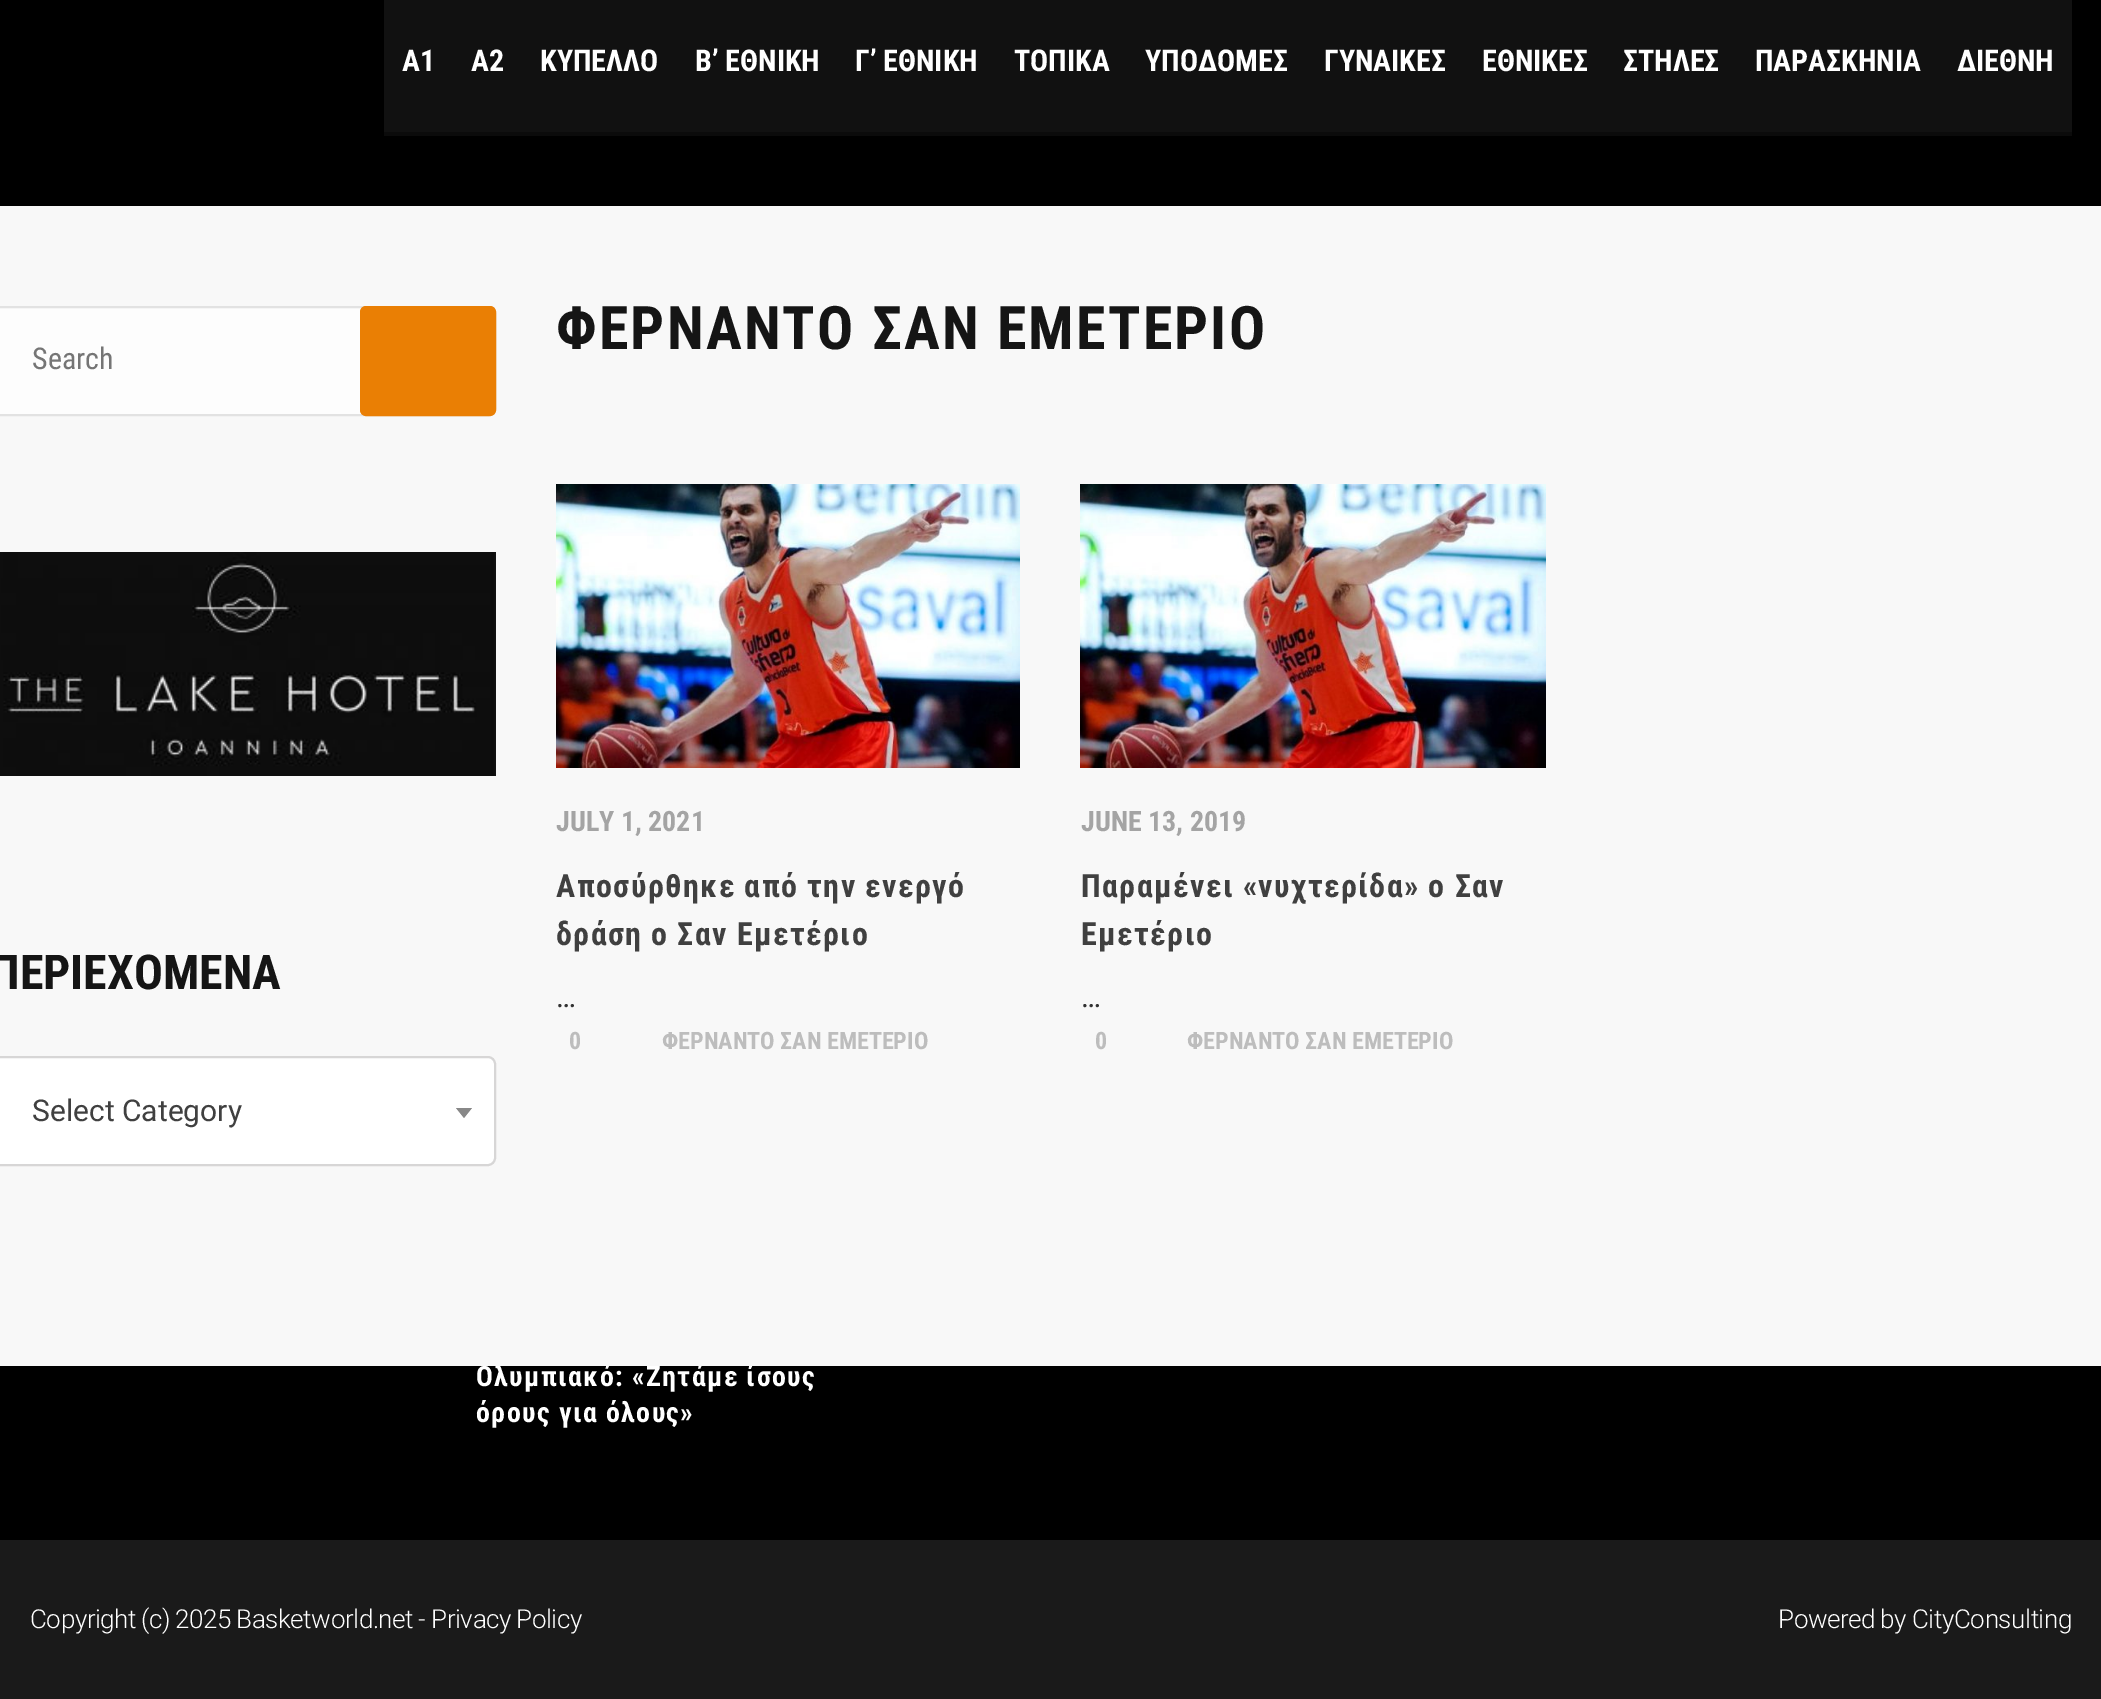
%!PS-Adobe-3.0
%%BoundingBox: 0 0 2101 1699
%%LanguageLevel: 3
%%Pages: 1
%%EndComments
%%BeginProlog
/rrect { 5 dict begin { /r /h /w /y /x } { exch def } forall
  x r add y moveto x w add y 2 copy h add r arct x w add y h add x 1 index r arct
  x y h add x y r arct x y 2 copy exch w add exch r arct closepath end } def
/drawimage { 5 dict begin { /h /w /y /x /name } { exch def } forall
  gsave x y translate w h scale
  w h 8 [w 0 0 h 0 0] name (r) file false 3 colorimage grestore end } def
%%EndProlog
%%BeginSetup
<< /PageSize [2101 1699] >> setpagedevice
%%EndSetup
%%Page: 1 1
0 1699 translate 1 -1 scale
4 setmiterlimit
0 setgray
0 0 2101 1699 rectfill
0.067 setgray
384 0 1688 132 rectfill
0.043 setgray
384 132 1688 4 rectfill
0.102 setgray
0 1540 2101 159 rectfill
/RobotoCondensed-Bold [30 0 0 -30 0 0] selectfont
1 setgray
402 71 moveto (Α1) show
471 71 moveto (Α2) show
540 71 moveto (ΚΥΠΕΛΛΟ) show
695 71 moveto (Β’ ΕΘΝΙΚΗ) show
855 71 moveto (Γ’ ΕΘΝΙΚΗ) show
1014 71 moveto (ΤΟΠΙΚΑ) show
1145 71 moveto (ΥΠΟΔΟΜΕΣ) show
1324 71 moveto (ΓΥΝΑΙΚΕΣ) show
1482 71 moveto (ΕΘΝΙΚΕΣ) show
1623 71 moveto (ΣΤΗΛΕΣ) show
1755 71 moveto (ΠΑΡΑΣΚΗΝΙΑ) show
1957 71 moveto (ΔΙΕΘΝΗ) show
/RobotoCondensed-Bold [28 0 0 -28 0 0] selectfont
476 1386 moveto 1.4 0 (Ολυμπιακό: «Ζητάμε ίσους) ashow
0.973 setgray
0 206 2101 1160 rectfill
0.992 setgray
newpath 0 306 moveto 488 306 lineto 492.5 306 496 309.5 496 314 curveto 496 408 lineto 496 412.5 492.5 416 488 416 curveto 0 416 lineto closepath fill
0.886 setgray
2 setlinewidth
-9 307 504 108 7 rrect stroke
0.918 0.498 0.016 setrgbcolor
4 setlinewidth
362 308 132 106 4 rrect stroke
364 310 128 102 rectfill
1 setgray
newpath 0 1056 moveto 488 1056 lineto 492.5 1056 496 1059.5 496 1064 curveto 496 1158 lineto 496 1162.5 492.5 1166 488 1166 curveto 0 1166 lineto closepath fill
0.843 0.839 0.839 setrgbcolor
2 setlinewidth
-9 1057 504 108 7 rrect stroke
0.533 setgray
newpath 456 1108 moveto 472 1108 lineto 464 1118 lineto closepath fill
/Roboto-Regular [30 0 0 -30 0 0] selectfont
0.251 setgray
32 1121 moveto (Select Category) show
/RobotoCondensed-Regular [30 0 0 -30 0 0] selectfont
0.459 setgray
32 369 moveto (Search) show
/RobotoCondensed-Bold [48 0 0 -48 0 0] selectfont
0.082 setgray
-10 989 moveto (ΠΕΡΙΕΧΟΜΕΝΑ) show
(images/1.raw) 0 552 496 224 drawimage
/RobotoCondensed-Bold [24 0 0 -24 0 0] selectfont
0.741 setgray
1187 1049 moveto (ΦΕΡΝΑΝΤΟ ΣΑΝ ΕΜΕΤΕΡΙΟ) show
1095 1049 moveto (0) show
/Roboto-Regular [30 0 0 -30 0 0] selectfont
0.196 setgray
1081 1007 moveto (…) show
(images/3.raw) 1080 484 466 284 drawimage
/RobotoCondensed-Bold [32 0 0 -32 0 0] selectfont
0.251 setgray
1081 945 moveto 1.4 0 (Εμετέριο) ashow
1081 897 moveto 1.4 0 (Παραμένει «νυχτερίδα» ο Σαν) ashow
/RobotoCondensed-Bold [28 0 0 -28 0 0] selectfont
0.643 setgray
1081 831 moveto (JUNE 13, 2019) show
/RobotoCondensed-Bold [24 0 0 -24 0 0] selectfont
0.741 setgray
662 1049 moveto (ΦΕΡΝΑΝΤΟ ΣΑΝ ΕΜΕΤΕΡΙΟ) show
569 1049 moveto (0) show
/Roboto-Regular [30 0 0 -30 0 0] selectfont
0.196 setgray
556 1007 moveto (…) show
(images/2.raw) 556 484 464 284 drawimage
/RobotoCondensed-Bold [32 0 0 -32 0 0] selectfont
0.251 setgray
556 945 moveto 1.4 0 (δράση ο Σαν Εμετέριο) ashow
556 897 moveto 1.4 0 (Αποσύρθηκε από την ενεργό) ashow
/RobotoCondensed-Bold [28 0 0 -28 0 0] selectfont
0.643 setgray
556 831 moveto (JULY 1, 2021) show
/RobotoCondensed-Bold [60 0 0 -60 0 0] selectfont
0.082 setgray
556 349 moveto 2.2 0 (ΦΕΡΝΑΝΤΟ ΣΑΝ ΕΜΕΤΕΡΙΟ) ashow
/RobotoCondensed-Bold [28 0 0 -28 0 0] selectfont
1 setgray
476 1422 moveto 1.4 0 (όρους για όλους») ashow
/Roboto-Light [26 0 0 -26 0 0] selectfont
30 1628 moveto -1 0 32 -0.4 0 (Copyright \(c\) 2025 Basketworld.net -) awidthshow
431 1628 moveto -1 0 32 -0.4 0 (Privacy Policy) awidthshow
1778 1628 moveto -1 0 32 -0.4 0 (Powered by) awidthshow
1912 1628 moveto -0.4 0 (CityConsulting) ashow
showpage
%%EOF
